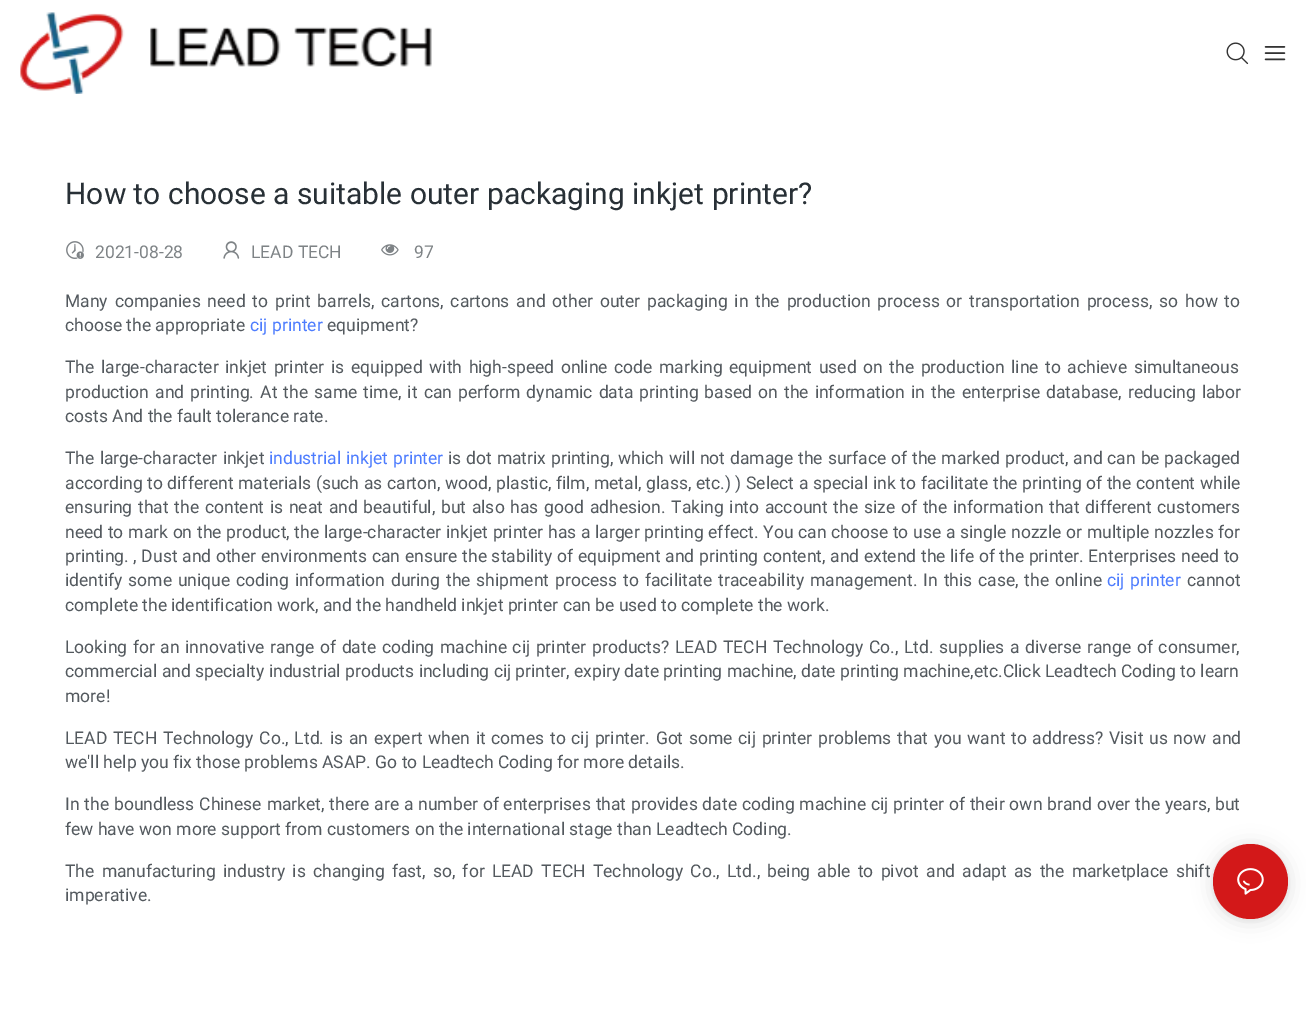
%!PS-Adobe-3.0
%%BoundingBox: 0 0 1306 1021
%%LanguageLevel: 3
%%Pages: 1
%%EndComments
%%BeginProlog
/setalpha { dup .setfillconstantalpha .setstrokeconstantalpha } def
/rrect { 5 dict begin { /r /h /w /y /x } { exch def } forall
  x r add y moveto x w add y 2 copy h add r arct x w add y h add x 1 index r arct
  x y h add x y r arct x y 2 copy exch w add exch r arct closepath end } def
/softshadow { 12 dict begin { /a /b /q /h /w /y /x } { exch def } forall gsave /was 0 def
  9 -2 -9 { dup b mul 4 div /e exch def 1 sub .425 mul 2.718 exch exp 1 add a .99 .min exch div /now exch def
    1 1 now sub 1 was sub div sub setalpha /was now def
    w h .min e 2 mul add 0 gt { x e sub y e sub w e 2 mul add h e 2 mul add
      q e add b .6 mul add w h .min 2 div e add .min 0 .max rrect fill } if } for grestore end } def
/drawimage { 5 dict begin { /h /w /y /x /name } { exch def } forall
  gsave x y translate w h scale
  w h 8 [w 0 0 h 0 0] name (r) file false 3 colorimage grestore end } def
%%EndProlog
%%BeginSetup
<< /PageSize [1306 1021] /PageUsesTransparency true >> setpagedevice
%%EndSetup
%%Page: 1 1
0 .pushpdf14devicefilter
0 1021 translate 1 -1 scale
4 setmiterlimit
1 setgray
0 0 1306 1021 rectfill
(images/1.raw) 20 12 412 82 drawimage
(images/2.raw) 1226 42 23 23 drawimage
(images/3.raw) 1264 46 22 15 drawimage
(images/4.raw) 66 241 18 18 drawimage
(images/5.raw) 223 241 17 18 drawimage
(images/6.raw) 381 244 18 12 drawimage
0 setgray
1213 846 75 75 37.5 10 0.12 softshadow
1213 845 75 75 37.5 2.5 0.06 softshadow
0.827 0.094 0.098 setrgbcolor
newpath 1250.5 881.5 37.5 0 360 arc closepath fill
(images/7.raw) 1237 868 27 27 drawimage
/Roboto-Regular [30 0 0 -30 0 0] selectfont
0.157 0.188 0.212 setrgbcolor
65 204 moveto (How to choose a suitable outer packaging inkjet printer?) show
/Roboto-Regular [17.5 0 0 -17.5 0 0] selectfont
0.494 0.514 0.525 setrgbcolor
95 258 moveto (2021-08-28) show
251 258 moveto (LEAD TECH) show
414 258 moveto (97) show
0.325 0.349 0.369 setrgbcolor
65 307 moveto 2.5 0 32 (Many companies need to print barrels, cartons, cartons and other outer packaging in the production process or transportation process, so how to) widthshow
65 331 moveto (choose the appropriate) show
0.302 0.486 0.996 setrgbcolor
250 331 moveto (cij printer) show
0.325 0.349 0.369 setrgbcolor
327 331 moveto (equipment?) show
65 373 moveto 2.25 0 32 (The large-character inkjet printer is equipped with high-speed online code marking equipment used on the production line to achieve simultaneous) widthshow
65 398 moveto 1.75 0 32 (production and printing. At the same time, it can perform dynamic data printing based on the information in the enterprise database, reducing labor) widthshow
65 422 moveto (costs And the fault tolerance rate.) show
65 464 moveto 1 0 32 (The large-character inkjet) widthshow
0.302 0.486 0.996 setrgbcolor
269 464 moveto 0.5 0 32 (industrial inkjet printer) widthshow
0.325 0.349 0.369 setrgbcolor
448 464 moveto 0.5 0 32 (is dot matrix printing, which will not damage the surface of the marked product, and can be packaged) widthshow
65 489 moveto 0.3 0 32 (according to different materials \(such as carton, wood, plastic, film, metal, glass, etc.\) \) Select a special ink to facilitate the printing of the content while) widthshow
65 513 moveto 1.4 0 32 (ensuring that the content is neat and beautiful, but also has good adhesion. Taking into account the size of the information that different customers) widthshow
65 538 moveto 0.35 0 32 (need to mark on the product, the large-character inkjet printer has a larger printing effect. You can choose to use a single nozzle or multiple nozzles for) widthshow
65 562 moveto 0.3 0 32 (printing. , Dust and other environments can ensure the stability of equipment and printing content, and extend the life of the printer. Enterprises need to) widthshow
65 586 moveto 1.5 0 32 (identify some unique coding information during the shipment process to facilitate traceability management. In this case, the online) widthshow
0.302 0.486 0.996 setrgbcolor
1107 586 moveto 1 0 32 (cij printer) widthshow
0.325 0.349 0.369 setrgbcolor
1187 586 moveto (cannot) show
65 611 moveto (complete the identification work, and the handheld inkjet printer can be used to complete the work.) show
65 653 moveto 1.3 0 32 (Looking for an innovative range of date coding machine cij printer products? LEAD TECH Technology Co., Ltd. supplies a diverse range of consumer,) widthshow
65 677 moveto (commercial and specialty industrial products including cij printer, expiry date printing machine, date printing machine,etc.Click Leadtech Coding to learn) show
65 702 moveto (more!) show
65 744 moveto 1.4 0 32 (LEAD TECH Technology Co., Ltd. is an expert when it comes to cij printer. Got some cij printer problems that you want to address? Visit us now and) widthshow
65 768 moveto (we'll help you fix those problems ASAP. Go to Leadtech Coding for more details.) show
65 810 moveto 0.5 0 32 (In the boundless Chinese market, there are a number of enterprises that provides date coding machine cij printer of their own brand over the years, but) widthshow
65 835 moveto (few have won more support from customers on the international stage than Leadtech Coding.) show
65 877 moveto 2.9 0 32 (The manufacturing industry is changing fast, so, for LEAD TECH Technology Co., Ltd., being able to pivot and adapt as the marketplace shift) widthshow
65 901 moveto (imperative.) show
.poppdf14devicefilter showpage
%%EOF
